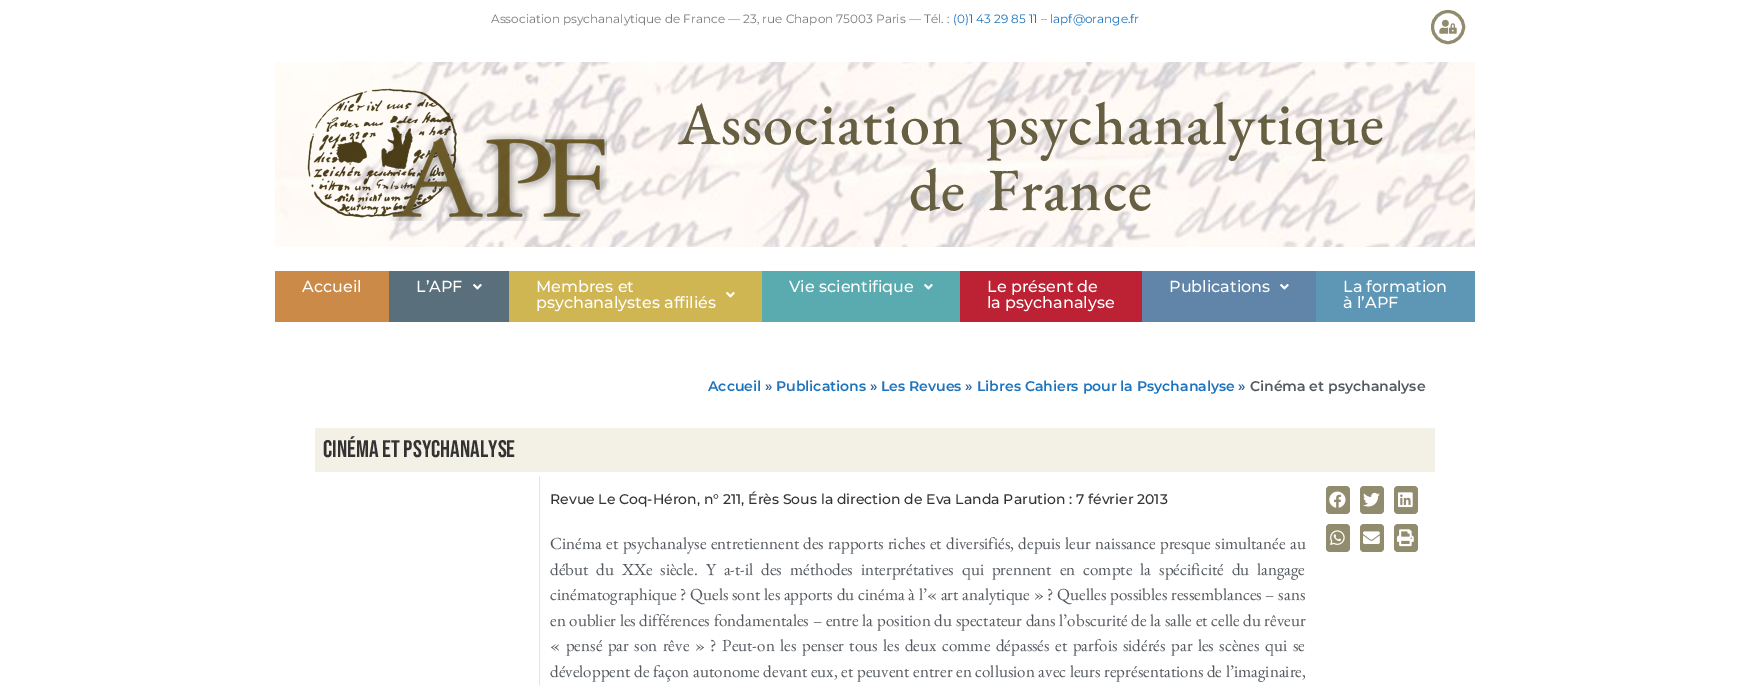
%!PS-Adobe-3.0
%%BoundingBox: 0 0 1750 686
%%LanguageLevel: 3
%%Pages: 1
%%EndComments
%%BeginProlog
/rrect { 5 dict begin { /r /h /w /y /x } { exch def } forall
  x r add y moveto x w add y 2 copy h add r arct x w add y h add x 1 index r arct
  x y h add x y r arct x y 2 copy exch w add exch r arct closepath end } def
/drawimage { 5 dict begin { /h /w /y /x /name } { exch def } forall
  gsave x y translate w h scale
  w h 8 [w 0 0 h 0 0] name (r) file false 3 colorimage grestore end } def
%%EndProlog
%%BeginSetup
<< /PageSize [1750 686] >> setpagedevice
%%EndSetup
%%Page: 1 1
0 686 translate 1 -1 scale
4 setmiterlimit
1 setgray
0 0 1750 686 rectfill
0.573 0.549 0.435 setrgbcolor
3 setlinewidth
newpath 1448 27 15.5 0 360 arc closepath stroke
(images/1.raw) 1439 19 18 15 drawimage
(images/2.raw) 275 62 1200 185 drawimage
(images/3.raw) 307 88 300 133 drawimage
0.796 0.541 0.282 setrgbcolor
275 271 114 51 rectfill
0.353 0.435 0.486 setrgbcolor
389 271 120 51 rectfill
(images/4.raw) 473 284 9 6 drawimage
0.816 0.71 0.325 setrgbcolor
509 271 253 51 rectfill
(images/5.raw) 726 292 9 6 drawimage
0.353 0.671 0.686 setrgbcolor
762 271 198 51 rectfill
(images/6.raw) 924 284 9 6 drawimage
0.737 0.133 0.2 setrgbcolor
960 271 182 51 rectfill
0.38 0.522 0.659 setrgbcolor
1142 271 174 51 rectfill
(images/7.raw) 1280 284 9 6 drawimage
0.369 0.592 0.71 setrgbcolor
1316 271 159 51 rectfill
0.953 0.945 0.902 setrgbcolor
315 428 1120 44 rectfill
0.91 0.902 0.863 setrgbcolor
539 476 1 210 rectfill
0.573 0.549 0.435 setrgbcolor
1326 486 24 28 4 rrect fill
(images/8.raw) 1329 491 17 17 drawimage
1360 486 24 28 4 rrect fill
(images/9.raw) 1363 492 17 15 drawimage
1394 486 24 28 4 rrect fill
(images/10.raw) 1398 492 15 16 drawimage
1326 524 24 28 4 rrect fill
(images/11.raw) 1330 530 15 15 drawimage
1360 524 24 28 4 rrect fill
(images/12.raw) 1363 531 17 13 drawimage
1394 524 24 28 4 rrect fill
(images/13.raw) 1397 529 17 18 drawimage
/Montserrat-Regular [12 0 0 -12 0 0] selectfont
0.478 setgray
491 23 moveto (Association psychanalytique de France — 23, rue Chapon 75003 Paris — Tél. :) show
0.118 0.451 0.745 setrgbcolor
953 23 moveto (\(0\)1 43 29 85 11) show
0.478 setgray
1041 23 moveto (–) show
0.118 0.451 0.745 setrgbcolor
1050 23 moveto (lapf@orange.fr) show
/EBGaramond-Medium [60 0 0 -60 0 0] selectfont
0.4 0.373 0.255 setrgbcolor
678 144 moveto 8 0 32 1 0 (Association psychanalytique) awidthshow
909 210 moveto 8 0 32 1 0 (de France) awidthshow
/Montserrat-Medium [16 0 0 -16 0 0] selectfont
1 setgray
302 292 moveto (Accueil) show
416 292 moveto (L’APF) show
536 292 moveto (Membres et) show
536 308 moveto (psychanalystes affiliés) show
789 292 moveto (Vie scientifique) show
987 292 moveto (Le présent de) show
987 308 moveto (la psychanalyse) show
1169 292 moveto (Publications) show
1343 292 moveto (La formation) show
1343 308 moveto (à l’APF) show
/Montserrat-SemiBold [14 0 0 -14 0 0] selectfont
0.118 0.451 0.745 setrgbcolor
708 391 moveto (Accueil) show
0.2 0.4 0.6 setrgbcolor
765 391 moveto (») show
0.118 0.451 0.745 setrgbcolor
776 391 moveto (Publications) show
0.2 0.4 0.6 setrgbcolor
870 391 moveto (») show
0.118 0.451 0.745 setrgbcolor
881 391 moveto (Les Revues) show
0.2 0.4 0.6 setrgbcolor
965 391 moveto (») show
0.118 0.451 0.745 setrgbcolor
977 391 moveto (Libres Cahiers pour la Psychanalyse) show
0.2 0.4 0.6 setrgbcolor
1238 391 moveto (») show
0.329 0.349 0.373 setrgbcolor
1250 391 moveto (Cinéma et psychanalyse) show
/BebasNeue-Regular [24 0 0 -24 0 0] selectfont
0.2 setgray
323 457 moveto (Cinéma et psychanalyse) show
/Montserrat-Medium [14 0 0 -14 0 0] selectfont
550 504 moveto (Revue Le Coq-Héron, n° 211, Érès Sous la direction de Eva Landa Parution : 7 février 2013) show
/EBGaramond-Regular [17 0 0 -17 0 0] selectfont
0.329 0.349 0.373 setrgbcolor
550 549 moveto 1 0 32 (Cinéma et psychanalyse entretiennent des rapports riches et diversifiés, depuis leur naissance presque simultanée au) widthshow
550 575 moveto 4.5 0 32 (début du XXe siècle. Y a-t-il des méthodes interprétatives qui prennent en compte la spécificité du langage) widthshow
550 600 moveto 0.25 0 32 (cinématographique ? Quels sont les apports du cinéma à l’« art analytique » ? Quelles possibles ressemblances – sans) widthshow
550 626 moveto 0.25 0 32 (en oublier les différences fondamentales – entre la position du spectateur dans l’obscurité de la salle et celle du rêveur) widthshow
550 651 moveto 2.1 0 32 (« pensé par son rêve » ? Peut-on les penser tous les deux comme dépassés et parfois sidérés par les scènes qui se) widthshow
550 677 moveto 0.25 0 32 (développent de façon autonome devant eux, et peuvent entrer en collusion avec leurs représentations de l’imaginaire,) widthshow
showpage
%%EOF
